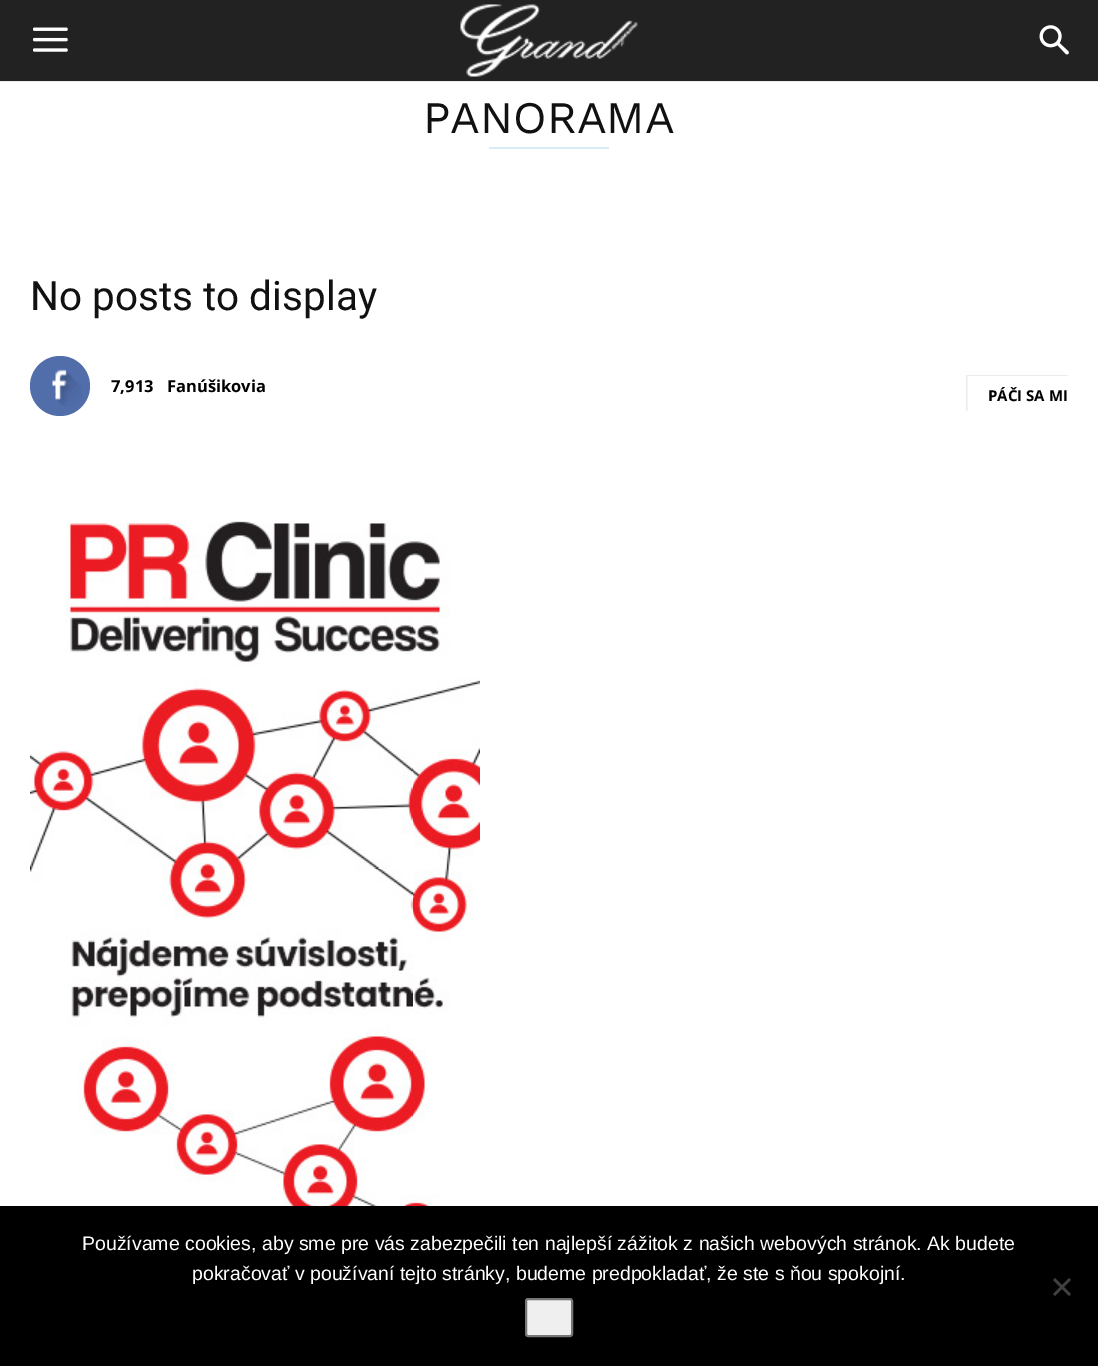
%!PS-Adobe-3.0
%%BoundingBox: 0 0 1098 1366
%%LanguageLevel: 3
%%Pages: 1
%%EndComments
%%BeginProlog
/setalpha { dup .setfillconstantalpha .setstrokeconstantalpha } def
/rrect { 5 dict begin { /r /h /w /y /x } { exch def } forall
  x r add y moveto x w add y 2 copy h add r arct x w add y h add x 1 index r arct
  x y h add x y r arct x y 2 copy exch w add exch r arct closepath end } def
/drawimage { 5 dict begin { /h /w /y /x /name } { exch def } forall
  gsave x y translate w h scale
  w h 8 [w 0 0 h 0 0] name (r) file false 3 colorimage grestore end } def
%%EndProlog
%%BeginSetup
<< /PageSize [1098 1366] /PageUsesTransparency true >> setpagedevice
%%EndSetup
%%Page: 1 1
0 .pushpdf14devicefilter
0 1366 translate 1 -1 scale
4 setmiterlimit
1 setgray
0 0 1098 1366 rectfill
0.922 setgray
0 81 1098 1 rectfill
0.133 setgray
0 0 1098 81 rectfill
(images/1.raw) 33 27 35 25 drawimage
(images/2.raw) 460 4 178 73 drawimage
(images/3.raw) 1039 25 30 30 drawimage
0.843 0.929 0.953 setrgbcolor
489 147 120 2 rectfill
0.318 0.431 0.671 setrgbcolor
newpath 60 386 30 0 360 arc closepath fill
(images/4.raw) 52 369 30 38 drawimage
0.922 setgray
newpath 966 375 moveto 1068 375 lineto 1068 376 lineto 968 376 lineto closepath fill
0.08 setalpha
0 setgray
newpath 966 411 moveto 966 375 lineto 967.5 376.5 lineto 967.5 411 lineto closepath fill
1 setalpha
(images/5.raw) 30 521 450 685 drawimage
0 1206 1098 160 rectfill
0.251 setgray
newpath 1069 1278 moveto 1071 1280 lineto 1055 1296 lineto 1053 1294 lineto closepath fill
newpath 1053 1280 moveto 1055 1278 lineto 1071 1294 lineto 1069 1296 lineto closepath fill
0.937 setgray
526 1299 46 37 2 rrect gsave fill grestore
0.463 setgray
2 setlinewidth
stroke
/WorkSans-Regular [45 0 0 -45 0 0] selectfont
0.067 setgray
423 133 moveto (PANORAMA) show
/Roboto-Regular [40.5 0 0 -40.5 0 0] selectfont
30 310 moveto (No posts to display) show
/OpenSans-Bold [16.5 0 0 -16.5 0 0] selectfont
0 setgray
111 392 moveto (7,913) show
167 392 moveto (Fanúšikovia) show
/OpenSans-Bold [15 0 0 -15 0 0] selectfont
988 401 moveto (PÁČI SA MI) show
/LiberationSans-Regular [19.5 0 0 -19.5 0 0] selectfont
1 setgray
82 1250 moveto (Používame cookies, aby sme pre vás zabezpečili ten najlepší zážitok z našich webových stránok. Ak budete) show
192 1280 moveto (pokračovať v používaní tejto stránky, budeme predpokladať, že ste s ňou spokojní.) show
.poppdf14devicefilter showpage
%%EOF
